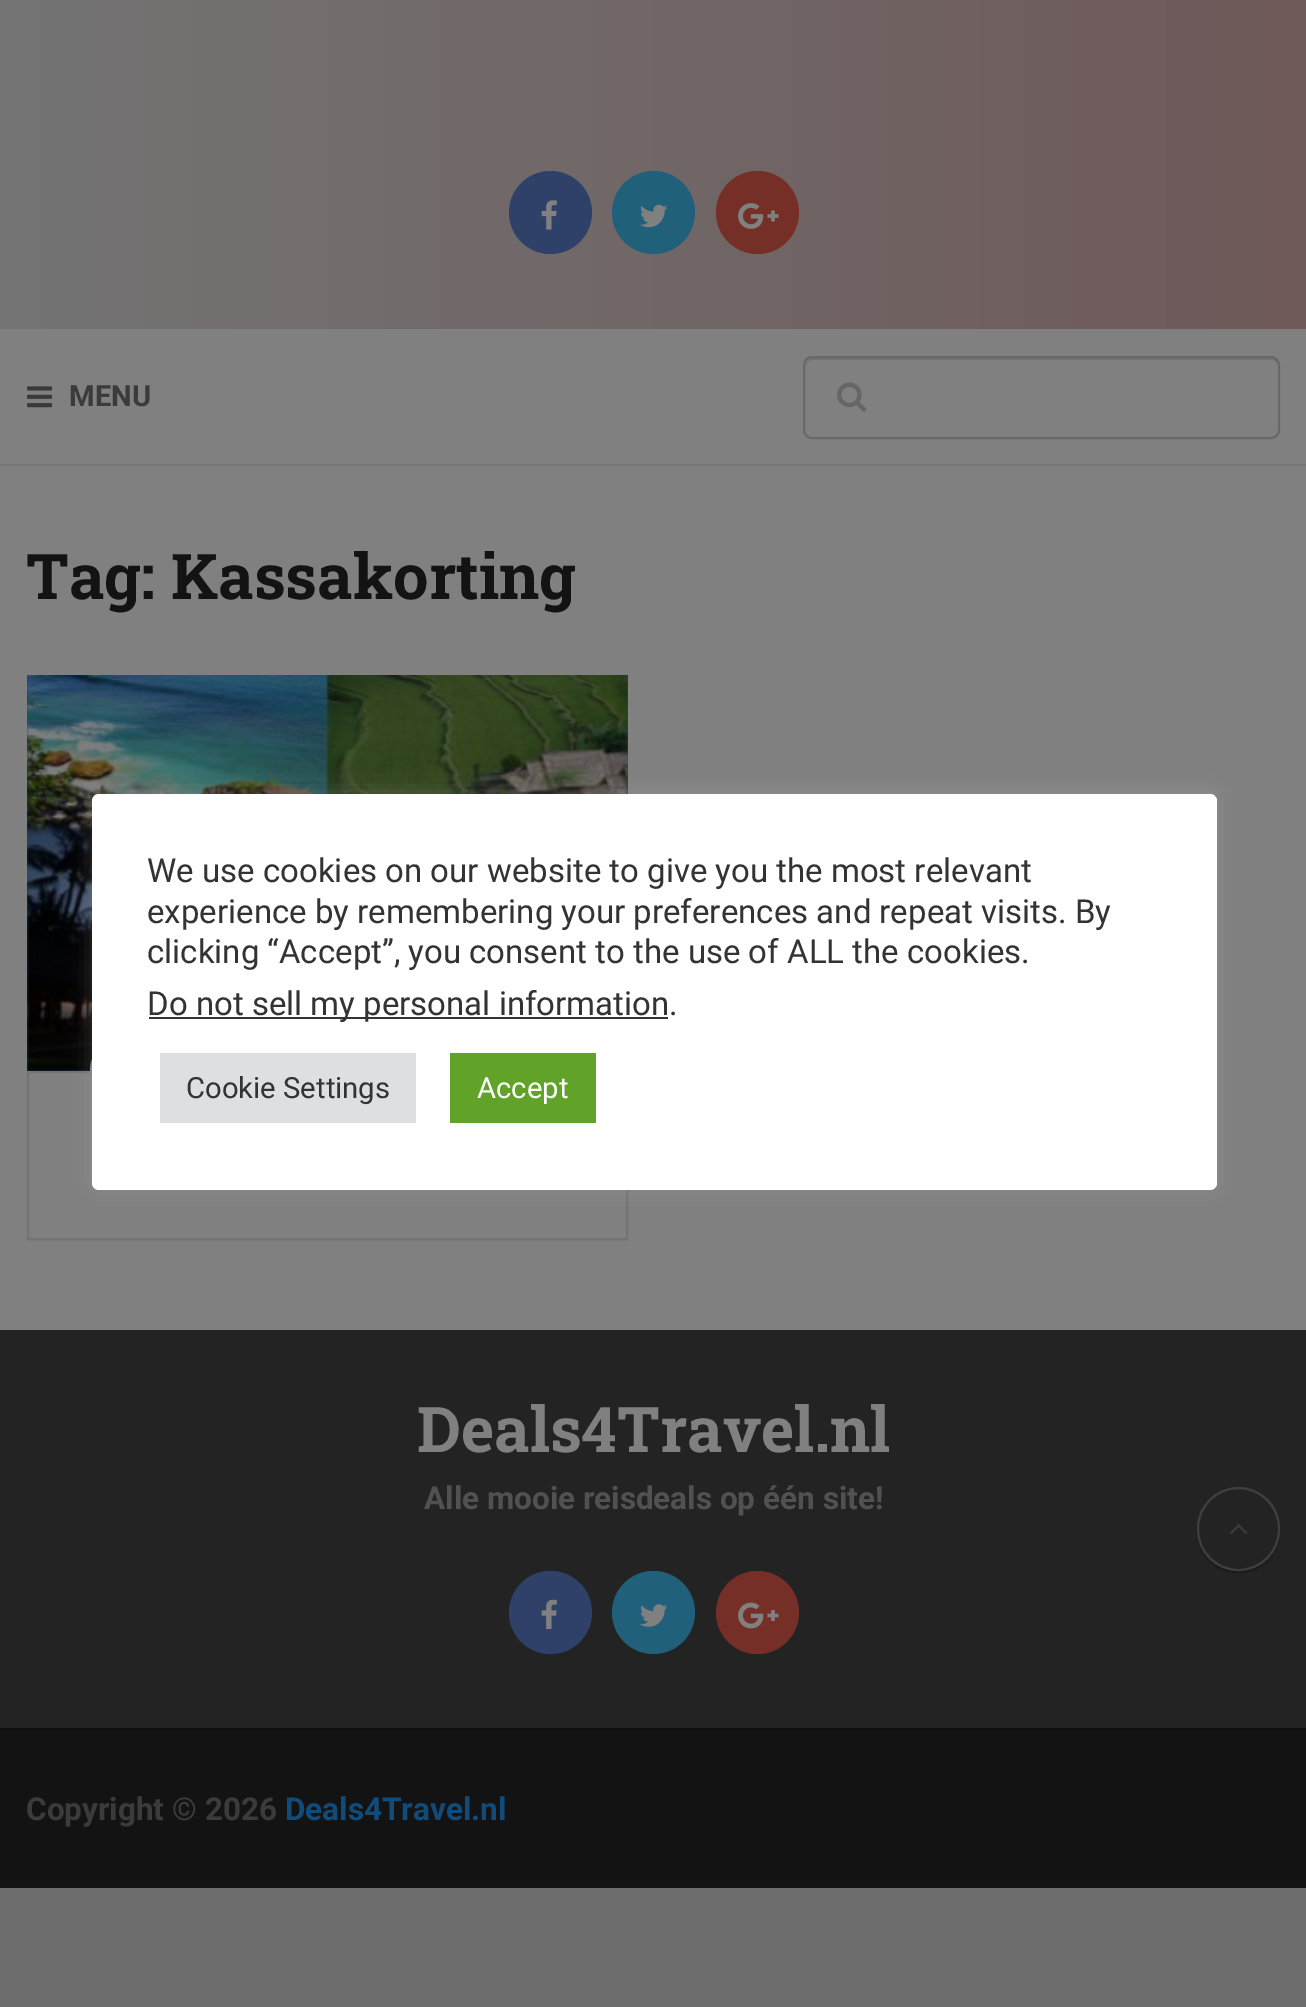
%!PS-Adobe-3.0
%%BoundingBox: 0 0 1306 2007
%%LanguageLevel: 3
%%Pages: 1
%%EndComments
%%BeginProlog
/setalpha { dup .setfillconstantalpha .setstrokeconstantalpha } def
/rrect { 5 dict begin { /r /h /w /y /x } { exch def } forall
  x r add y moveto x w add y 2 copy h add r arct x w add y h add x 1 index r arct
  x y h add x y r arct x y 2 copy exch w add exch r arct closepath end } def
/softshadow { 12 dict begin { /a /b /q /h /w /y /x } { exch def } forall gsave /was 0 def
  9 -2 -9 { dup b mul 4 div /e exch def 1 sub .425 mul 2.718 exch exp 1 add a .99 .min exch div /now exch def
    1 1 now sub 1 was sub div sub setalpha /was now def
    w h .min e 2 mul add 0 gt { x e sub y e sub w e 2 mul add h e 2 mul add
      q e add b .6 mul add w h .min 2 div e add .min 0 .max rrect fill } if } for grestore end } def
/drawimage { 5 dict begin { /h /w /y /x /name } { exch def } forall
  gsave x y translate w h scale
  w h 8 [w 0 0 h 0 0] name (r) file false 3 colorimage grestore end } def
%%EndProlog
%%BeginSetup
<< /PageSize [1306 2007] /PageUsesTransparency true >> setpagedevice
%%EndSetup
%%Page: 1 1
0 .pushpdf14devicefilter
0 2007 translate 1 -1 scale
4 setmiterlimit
0.427 setgray
0 0 1306 2007 rectfill
gsave newpath 0 0 moveto 1306 0 lineto 1306 329 lineto 0 329 lineto closepath clip newpath
<< /ShadingType 2 /ColorSpace /DeviceRGB /Coords [0 164 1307 164] /Extend [true true] /Function << /FunctionType 2 /Domain [0 1] /C0 [0.455 0.455 0.455] /C1 [0.435 0.349 0.349] /N 1 >> >> shfill grestore
0.184 0.255 0.412 setrgbcolor
newpath 550.5 212.5 41.5 0 360 arc closepath fill
(images/1.raw) 541 200 16 30 drawimage
0.125 0.376 0.482 setrgbcolor
newpath 653.5 212.5 41.5 0 360 arc closepath fill
(images/2.raw) 640 204 28 24 drawimage
0.463 0.184 0.149 setrgbcolor
newpath 757.5 212.5 41.5 0 360 arc closepath fill
(images/3.raw) 738 203 41 26 drawimage
0.502 setgray
0 464 1306 866 rectfill
0 setgray
0 331 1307 135 0 1 0.1 softshadow
0.502 setgray
0 329 1306 135 rectfill
(images/4.raw) 27 386 26 22 drawimage
0.451 setgray
newpath 812 360 moveto 1271 360 lineto 1275 360 1278 363 1278 367 curveto 1278 365 lineto 1278 361 1275 358 1271 358 curveto 813 358 lineto 809 358 806 361 806 365 curveto 806 367 lineto 806 363 809 360 812 360 curveto closepath fill
0.18 setalpha
0 setgray
2 setlinewidth
804 357 475 81 8 rrect stroke
1 setalpha
(images/5.raw) 837 382 30 30 drawimage
0.486 setgray
newpath 27 1240 moveto 27 1242 lineto 628 1242 lineto 628 677 lineto 628 1240 lineto closepath fill
0.067 0.294 0.478 setrgbcolor
27 675 601 396 rectfill
(images/6.raw) 27 675 601 396 drawimage
0.451 setgray
28 1072 599 167 rectstroke
0.502 setgray
7 setlinewidth
newpath 130.5 1071.5 37 0 360 arc closepath stroke
0.075 setgray
0 1730 1306 158 rectfill
0.067 setgray
0 1728 1306 2 rectfill
0 setgray
0 1332 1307 398 0 1 0.15 softshadow
0.137 setgray
0 1330 1306 398 rectfill
0 setgray
1197 1490 83 83 41.5 1 0.3 softshadow
0.137 setgray
1197 1487 83 84 41.5 rrect fill
0.3 setalpha
0.502 setgray
2 setlinewidth
1198 1488 81 82 40.5 rrect stroke
1 setalpha
(images/7.raw) 1230 1524 18 11 drawimage
0.184 0.255 0.412 setrgbcolor
newpath 550.5 1612.5 41.5 0 360 arc closepath fill
(images/8.raw) 541 1599 16 30 drawimage
0.125 0.376 0.482 setrgbcolor
newpath 653.5 1612.5 41.5 0 360 arc closepath fill
(images/9.raw) 640 1604 28 23 drawimage
0.463 0.184 0.149 setrgbcolor
newpath 757.5 1612.5 41.5 0 360 arc closepath fill
(images/10.raw) 738 1602 41 27 drawimage
0.675 0.671 0.671 setrgbcolor
92 792 1125 396 7 11 0.3 softshadow
1 setgray
92 794 1125 396 7 rrect fill
0.2 setgray
149 1017 519 2 rectfill
0.871 0.875 0.878 setrgbcolor
160 1053 256 70 rectfill
0.38 0.635 0.161 setrgbcolor
450 1053 146 70 rectfill
/Roboto-Bold [29.25 0 0 -29.25 0 0] selectfont
0.231 setgray
69 406 moveto (MENU) show
/RobotoSlab-Bold [63 0 0 -63 0 0] selectfont
0.075 setgray
26 599 moveto (Tag: Kassakorting) show
0.502 setgray
417 1452 moveto (Deals4Travel.nl) show
/Roboto-Bold [31.5 0 0 -31.5 0 0] selectfont
0.318 setgray
424 1509 moveto (Alle mooie reisdeals op één site!) show
0.231 setgray
26 1820 moveto (Copyright © 2026) show
0.067 0.294 0.478 setrgbcolor
285 1820 moveto (Deals4Travel.nl) show
/Roboto-Regular [33 0 0 -33 0 0] selectfont
0.2 setgray
147 882 moveto (We use cookies on our website to give you the most relevant) show
147 923 moveto (experience by remembering your preferences and repeat visits. By) show
147 963 moveto (clicking “Accept”, you consent to the use of ALL the cookies.) show
147 1015 moveto (Do not sell my personal information) show
669 1015 moveto (.) show
/Roboto-Regular [29.25 0 0 -29.25 0 0] selectfont
186 1098 moveto (Cookie Settings) show
1 setgray
477 1098 moveto (Accept) show
.poppdf14devicefilter showpage
%%EOF
